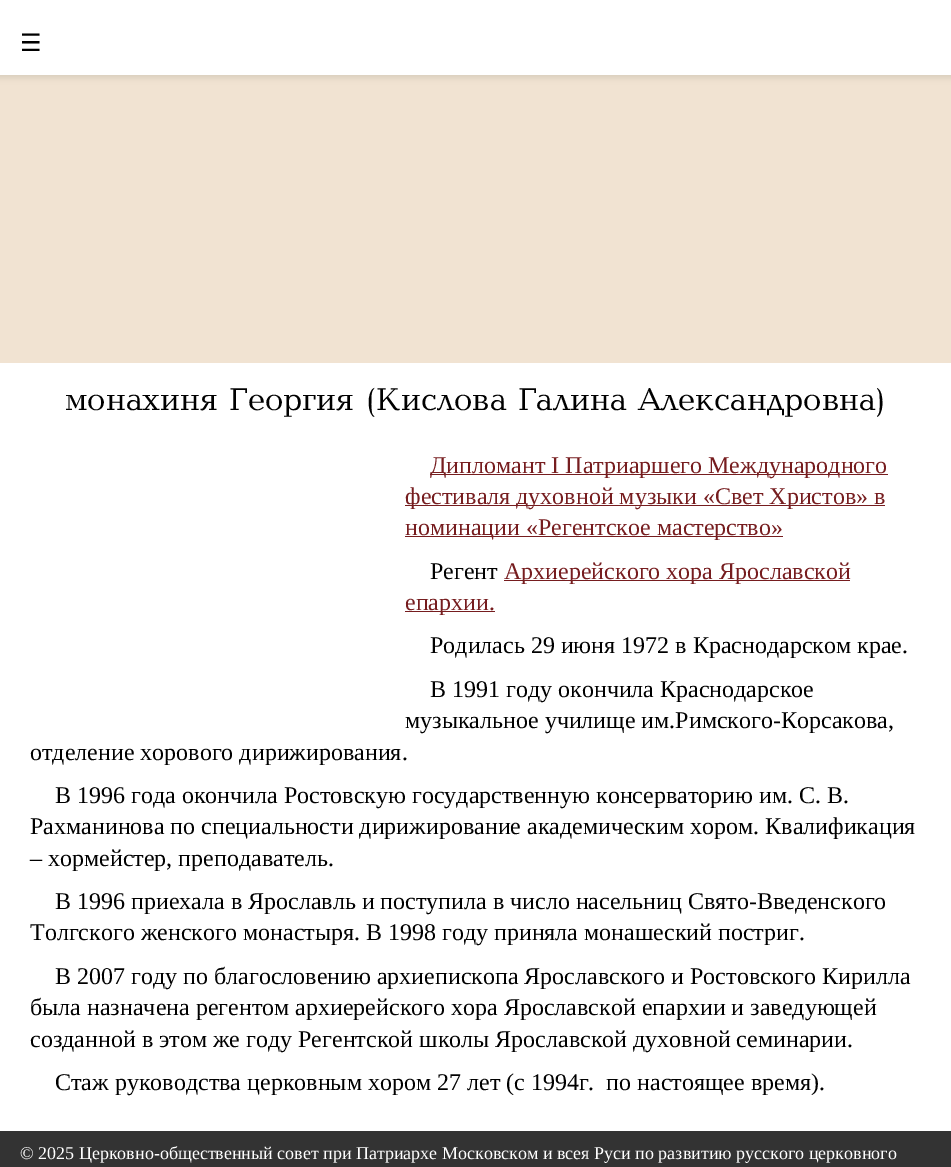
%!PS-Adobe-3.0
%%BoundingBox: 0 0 951 1167
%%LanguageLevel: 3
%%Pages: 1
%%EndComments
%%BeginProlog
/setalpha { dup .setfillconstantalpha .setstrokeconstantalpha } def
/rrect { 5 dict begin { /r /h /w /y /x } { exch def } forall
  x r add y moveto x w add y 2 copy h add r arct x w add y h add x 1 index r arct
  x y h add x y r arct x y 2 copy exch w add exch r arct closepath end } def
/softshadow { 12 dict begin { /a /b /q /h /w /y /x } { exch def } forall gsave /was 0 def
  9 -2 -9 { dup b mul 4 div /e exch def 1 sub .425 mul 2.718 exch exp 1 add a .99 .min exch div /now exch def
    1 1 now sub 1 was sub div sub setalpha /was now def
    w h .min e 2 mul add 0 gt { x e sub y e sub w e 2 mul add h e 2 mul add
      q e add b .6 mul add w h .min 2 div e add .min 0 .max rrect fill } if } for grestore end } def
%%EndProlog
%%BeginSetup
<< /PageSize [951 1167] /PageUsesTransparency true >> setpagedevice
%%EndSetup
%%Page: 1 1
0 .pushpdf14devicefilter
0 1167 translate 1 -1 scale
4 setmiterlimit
1 setgray
0 0 951 1167 rectfill
0.945 0.89 0.824 setrgbcolor
0 75 951 288 rectfill
0 setgray
-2 -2 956 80 0 3 0.1 softshadow
1 setgray
0 0 951 75 rectfill
0.463 0.114 0.122 setrgbcolor
430 474 458 1 rectfill
405 505 480 1 rectfill
405 536 378 1 rectfill
504 580 346 1 rectfill
405 611 90 1 rectfill
0.2 setgray
0 1131 951 36 rectfill
/DejaVuSans-Regular [24 0 0 -24 0 0] selectfont
0 setgray
20 51 moveto (☰) show
/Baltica-Regular [32.5 0 0 -32.5 0 0] selectfont
65 410 moveto (монахиня Георгия \(Кислова Галина Александровна\)) show
/LiberationSerif-Regular [24 0 0 -24 0 0] selectfont
0.463 0.114 0.122 setrgbcolor
430 473 moveto (Дипломант I Патриаршего Международного) show
405 504 moveto (фестиваля духовной музыки «Свет Христов» в) show
405 535 moveto (номинации «Регентское мастерство») show
0 setgray
430 579 moveto (Регент) show
0.463 0.114 0.122 setrgbcolor
504 579 moveto (Архиерейского хора Ярославской) show
405 610 moveto (епархии.) show
0 setgray
430 653 moveto (Родилась 29 июня 1972 в Краснодарском крае.) show
430 697 moveto (В 1991 году окончила Краснодарское) show
405 728 moveto (музыкальное училище им.Римского-Корсакова,) show
30 760 moveto (отделение хорового дирижирования.) show
55 803 moveto (В 1996 года окончила Ростовскую государственную консерваторию им. С. В.) show
30 834 moveto (Рахманинова по специальности дирижирование академическим хором. Квалификация) show
30 866 moveto (– хормейстер, преподаватель.) show
55 909 moveto (В 1996 приехала в Ярославль и поступила в число насельниц Свято-Введенского) show
30 940 moveto (Толгского женского монастыря. В 1998 году приняла монашеский постриг.) show
55 984 moveto (В 2007 году по благословению архиепископа Ярославского и Ростовского Кирилла) show
30 1015 moveto (была назначена регентом архиерейского хора Ярославской епархии и заведующей) show
30 1047 moveto (созданной в этом же году Регентской школы Ярославской духовной семинарии.) show
55 1090 moveto (Стаж руководства церковным хором 27 лет \(с 1994г.  по настоящее время\).) show
/LiberationSerif-Regular [18 0 0 -18 0 0] selectfont
1 setgray
20 1159 moveto (© 2025 Церковно-общественный совет при Патриархе Московском и всея Руси по развитию русского церковного) show
.poppdf14devicefilter showpage
%%EOF
